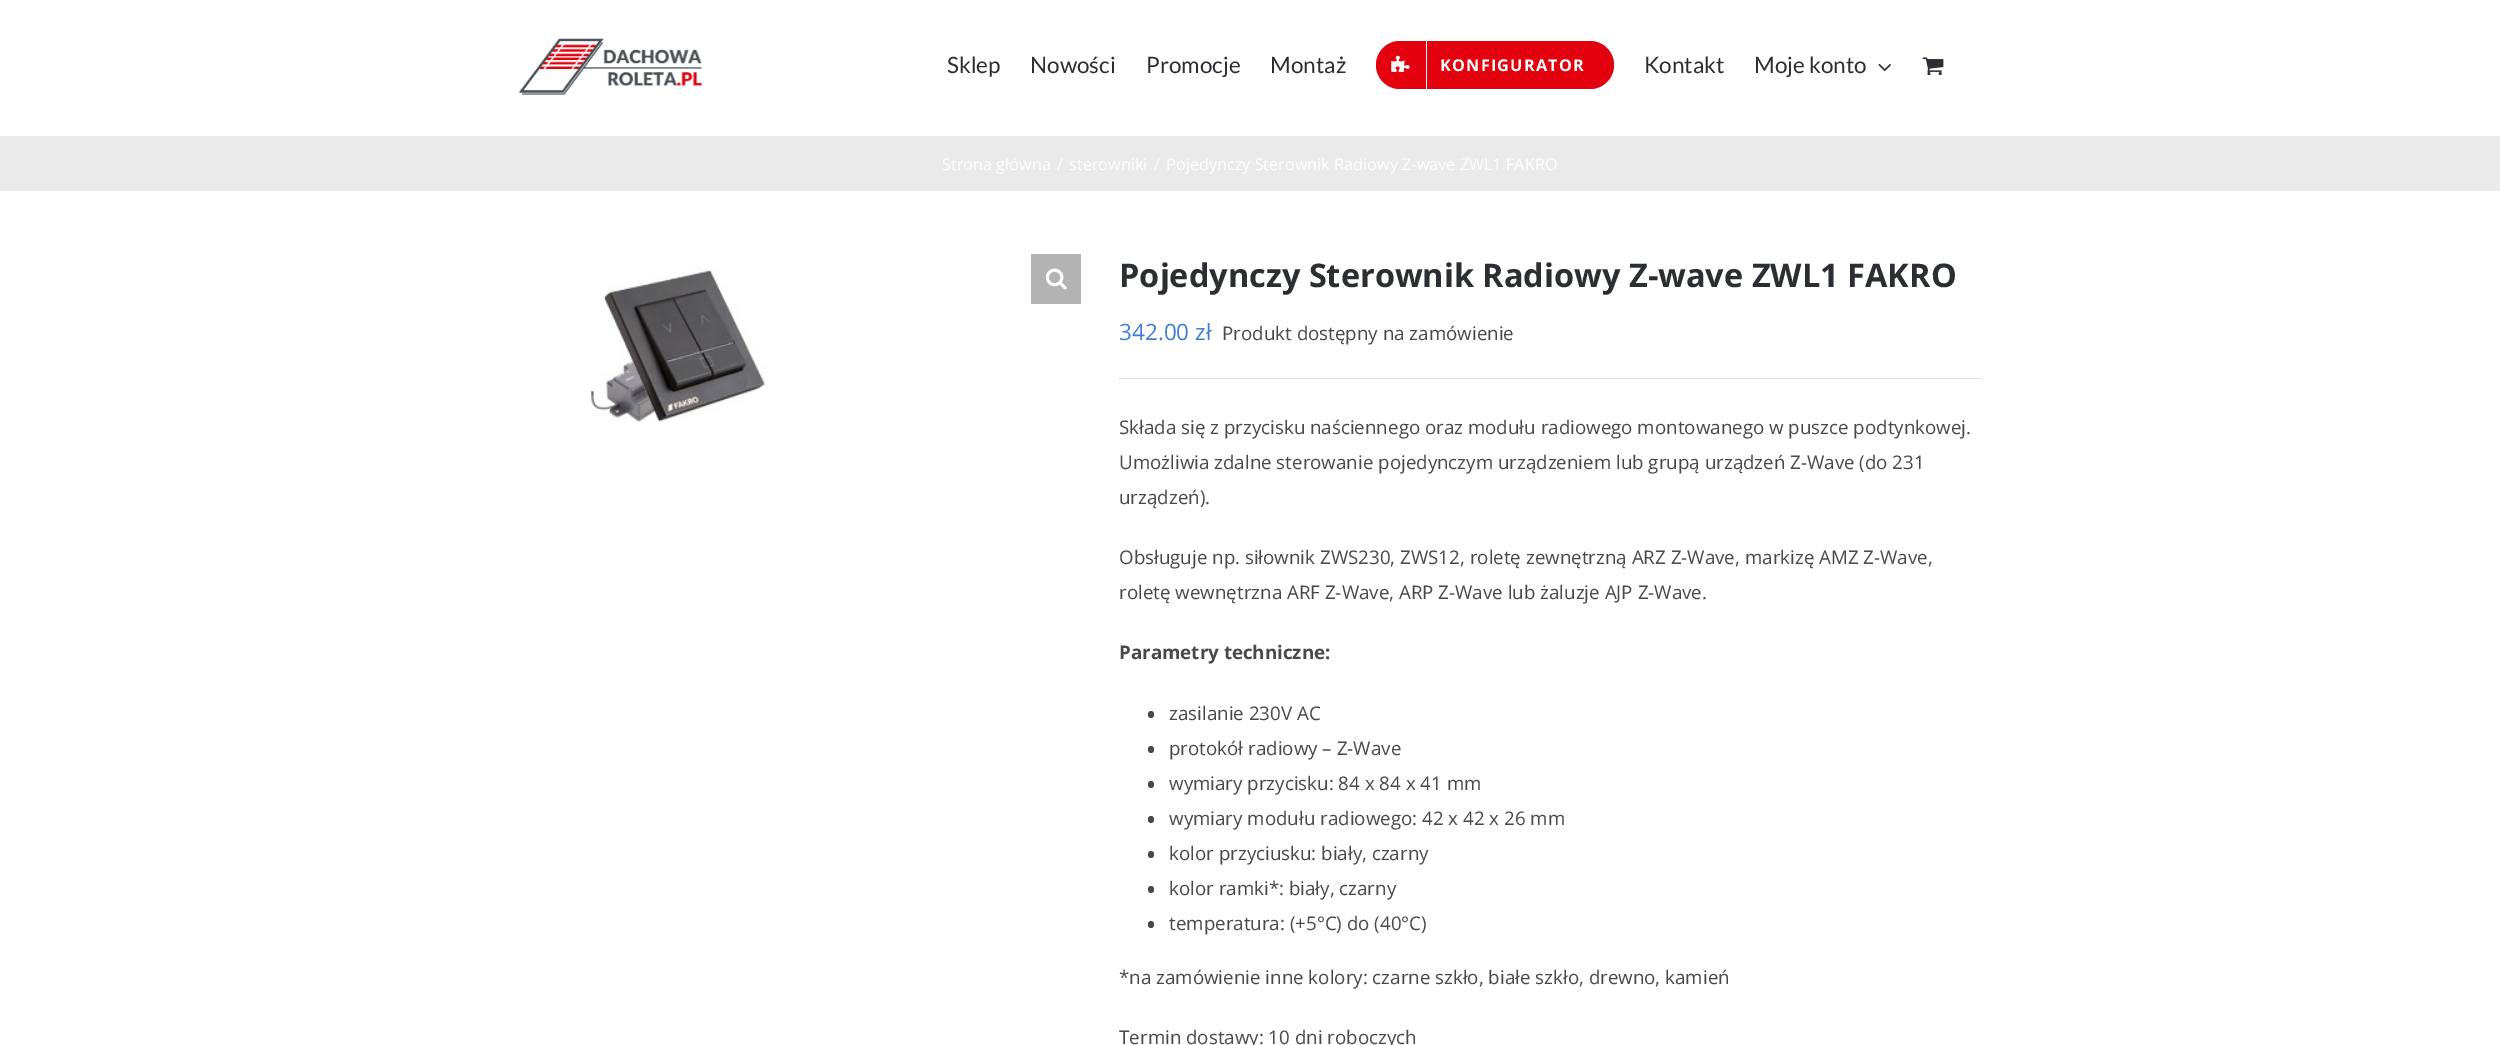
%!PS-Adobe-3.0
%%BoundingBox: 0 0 2500 1045
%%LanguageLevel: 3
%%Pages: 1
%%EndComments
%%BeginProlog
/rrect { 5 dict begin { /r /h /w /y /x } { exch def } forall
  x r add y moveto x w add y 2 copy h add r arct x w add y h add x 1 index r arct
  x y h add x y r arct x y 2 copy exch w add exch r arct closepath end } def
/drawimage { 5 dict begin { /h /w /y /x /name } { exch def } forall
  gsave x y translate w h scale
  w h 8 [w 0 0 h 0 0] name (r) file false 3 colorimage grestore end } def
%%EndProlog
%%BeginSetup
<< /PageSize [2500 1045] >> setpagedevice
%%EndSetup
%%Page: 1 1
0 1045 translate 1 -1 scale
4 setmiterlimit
1 setgray
0 0 2500 1045 rectfill
(images/1.raw) 518 38 184 57 drawimage
0.89 0 0.059 setrgbcolor
1376 41 238 48 24 rrect fill
1 setgray
1426 41 1 48 rectfill
(images/2.raw) 1391 55 19 17 drawimage
(images/3.raw) 1878 64 13 8 drawimage
(images/4.raw) 1922 57 22 19 drawimage
0.918 setgray
0 136 2500 55 rectfill
(images/5.raw) 590 267 178 155 drawimage
0.702 setgray
1031 254 50 50 rectfill
(images/6.raw) 1045 268 22 22 drawimage
0.878 0.871 0.871 setrgbcolor
1119 378 862 1 rectfill
0.286 setgray
1148 711 6 7 3 rrect fill
1148 746 6 7 3 rrect fill
1148 781 6 7 3 rrect fill
1148 816 6 7 3 rrect fill
1148 851 6 7 3 rrect fill
1148 886 6 7 3 rrect fill
1148 921 6 7 3 rrect fill
/Lato-Regular [22.5 0 0 -22.5 0 0] selectfont
0.169 0.18 0.196 setrgbcolor
947 73 moveto (Sklep) show
1030 73 moveto (Nowości) show
1146 73 moveto (Promocje) show
1270 73 moveto (Montaż) show
/OpenSans-Bold [16.25 0 0 -16.25 0 0] selectfont
1 setgray
1440 71 moveto 1.25 0 (KONFIGURATOR) ashow
/Lato-Regular [22.5 0 0 -22.5 0 0] selectfont
0.169 0.18 0.196 setrgbcolor
1644 73 moveto (Kontakt) show
1754 73 moveto (Moje konto) show
/OpenSans-Regular [16.25 0 0 -16.25 0 0] selectfont
1 setgray
942 170 moveto (Strona główna) show
1057 170 moveto (/) show
1069 170 moveto (sterowniki) show
1154 170 moveto (/) show
1166 170 moveto (Pojedynczy Sterownik Radiowy Z-wave ZWL1 FAKRO) show
/OpenSans-Bold [32.5 0 0 -32.5 0 0] selectfont
0.169 0.18 0.196 setrgbcolor
1119 287 moveto (Pojedynczy Sterownik Radiowy Z-wave ZWL1 FAKRO) show
/OpenSans-Regular [22.5 0 0 -22.5 0 0] selectfont
0.259 0.494 0.82 setrgbcolor
1119 340 moveto (342.00 zł) show
/OpenSans-Regular [18.75 0 0 -18.75 0 0] selectfont
0.286 setgray
1222 340 moveto (Produkt dostępny na zamówienie) show
1119 434 moveto (Składa się z przycisku naściennego oraz modułu radiowego montowanego w puszce podtynkowej.) show
1119 469 moveto (Umożliwia zdalne sterowanie pojedynczym urządzeniem lub grupą urządzeń Z-Wave \(do 231) show
1119 504 moveto (urządzeń\).) show
1119 564 moveto (Obsługuje np. siłownik ZWS230, ZWS12, roletę zewnętrzną ARZ Z-Wave, markizę AMZ Z-Wave,) show
1119 599 moveto (roletę wewnętrzna ARF Z-Wave, ARP Z-Wave lub żaluzje AJP Z-Wave.) show
/OpenSans-Bold [18.75 0 0 -18.75 0 0] selectfont
1119 659 moveto (Parametry techniczne:) show
/OpenSans-Regular [18.75 0 0 -18.75 0 0] selectfont
1169 720 moveto (zasilanie 230V AC) show
1169 755 moveto (protokół radiowy – Z-Wave) show
1169 790 moveto (wymiary przycisku: 84 x 84 x 41 mm) show
1169 825 moveto (wymiary modułu radiowego: 42 x 42 x 26 mm) show
1169 860 moveto (kolor przyciusku: biały, czarny) show
1169 895 moveto (kolor ramki*: biały, czarny) show
1169 930 moveto (temperatura: \(+5°C\) do \(40°C\)) show
1119 984 moveto (*na zamówienie inne kolory: czarne szkło, białe szkło, drewno, kamień) show
1119 1044 moveto (Termin dostawy: 10 dni roboczych) show
showpage
%%EOF
